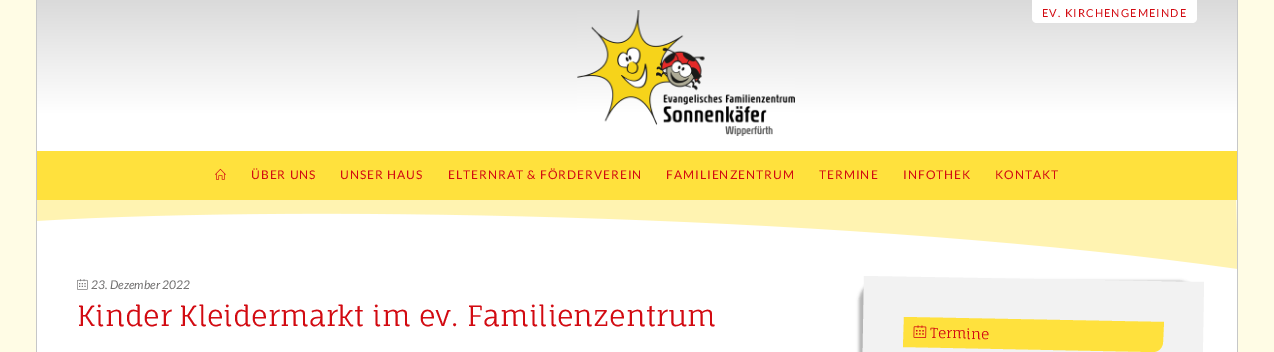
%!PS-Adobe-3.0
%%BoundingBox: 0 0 1274 352
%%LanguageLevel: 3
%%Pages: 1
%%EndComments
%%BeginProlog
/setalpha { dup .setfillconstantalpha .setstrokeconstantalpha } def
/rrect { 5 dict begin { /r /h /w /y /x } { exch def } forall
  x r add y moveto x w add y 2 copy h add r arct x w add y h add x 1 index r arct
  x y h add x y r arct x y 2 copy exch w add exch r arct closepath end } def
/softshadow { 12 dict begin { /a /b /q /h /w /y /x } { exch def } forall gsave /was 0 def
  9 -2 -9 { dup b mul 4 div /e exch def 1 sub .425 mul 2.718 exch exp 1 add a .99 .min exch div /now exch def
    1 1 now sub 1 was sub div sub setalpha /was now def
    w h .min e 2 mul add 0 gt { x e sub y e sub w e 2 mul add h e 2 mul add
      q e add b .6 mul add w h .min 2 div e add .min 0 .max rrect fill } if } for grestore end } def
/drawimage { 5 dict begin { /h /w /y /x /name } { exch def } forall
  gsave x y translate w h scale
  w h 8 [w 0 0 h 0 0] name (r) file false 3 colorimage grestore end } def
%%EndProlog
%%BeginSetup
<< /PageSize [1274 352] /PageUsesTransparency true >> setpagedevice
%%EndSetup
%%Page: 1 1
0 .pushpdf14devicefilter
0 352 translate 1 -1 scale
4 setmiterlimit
1 0.988 0.898 setrgbcolor
0 0 1274 352 rectfill
1 setgray
37 200 1200 152 rectfill
0.776 0.78 0.784 setrgbcolor
1237 0 1 352 rectfill
36 0 1 352 rectfill
gsave newpath 37 0 moveto 1237 0 lineto 1237 151 lineto 37 151 lineto closepath clip newpath
<< /ShadingType 2 /ColorSpace /DeviceRGB /Coords [637 151 637 0] /Extend [true true] /Function << /FunctionType 3 /Domain [0 1] /Functions [<< /FunctionType 2 /Domain [0 1] /C0 [1 1 1] /C1 [1 1 1] /N 1 >> << /FunctionType 2 /Domain [0 1] /C0 [1 1 1] /C1 [0.855 0.855 0.855] /N 1 >>] /Bounds [0.25] /Encode [0 1 0 1] >> >> shfill grestore
(images/1.raw) 577 10 218 126 drawimage
1 setgray
newpath 1032 0 moveto 1197 0 lineto 1197 18 lineto 1197 21 1195 23 1192 23 curveto 1037 23 lineto 1034 23 1032 21 1032 18 curveto closepath fill
1 0.882 0.239 setrgbcolor
37 151 1200 49 rectfill
(images/2.raw) 215 168 11 12 drawimage
(images/3.raw) 37 200 1200 69 drawimage
(images/4.raw) 77 279 11 11 drawimage
0 setgray
859 281 340 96 20 1.5 0.3 softshadow
0.949 setgray
newpath 864 276 moveto 1204 282 lineto 1190 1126 lineto 1189 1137 1180 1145 1169 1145 curveto 849 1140 lineto closepath fill
1 0.882 0.239 setrgbcolor
newpath 904 317 moveto 1164 322 lineto 1163 342 lineto 1163 347 1159 352 1153 352 curveto 903 347 lineto closepath fill
(images/5.raw) 913 325 14 13 drawimage
/Lato-Regular [11 0 0 -11 0 0] selectfont
0.824 0.039 0.067 setrgbcolor
1042 17 moveto 1.1 0 (EV. KIRCHENGEMEINDE) ashow
/Lato-Regular [12 0 0 -12 0 0] selectfont
251 179 moveto 1 0 (ÜBER UNS) ashow
340 179 moveto 1 0 (UNSER HAUS) ashow
448 179 moveto 1 0 (ELTERNRAT & FÖRDERVEREIN) ashow
666 179 moveto 1 0 (FAMILIENZENTRUM) ashow
819 179 moveto 1 0 (TERMINE) ashow
903 179 moveto 1 0 (INFOTHEK) ashow
995 179 moveto 1 0 (KONTAKT) ashow
/Lato-Italic [12 0 0 -12 0 0] selectfont
0.439 0.435 0.435 setrgbcolor
91 289 moveto (23. Dezember 2022) show
/FaunaOne-Regular [28 0 0 -28 0 0] selectfont
0.824 0.039 0.067 setrgbcolor
77 326 moveto (Kinder Kleidermarkt im ev. Familienzentrum) show
/FaunaOne-Regular [14 0 0 -14 0 0] selectfont
gsave 930 338 translate 1 rotate 0 0 moveto (Termine) show grestore
.poppdf14devicefilter showpage
%%EOF
